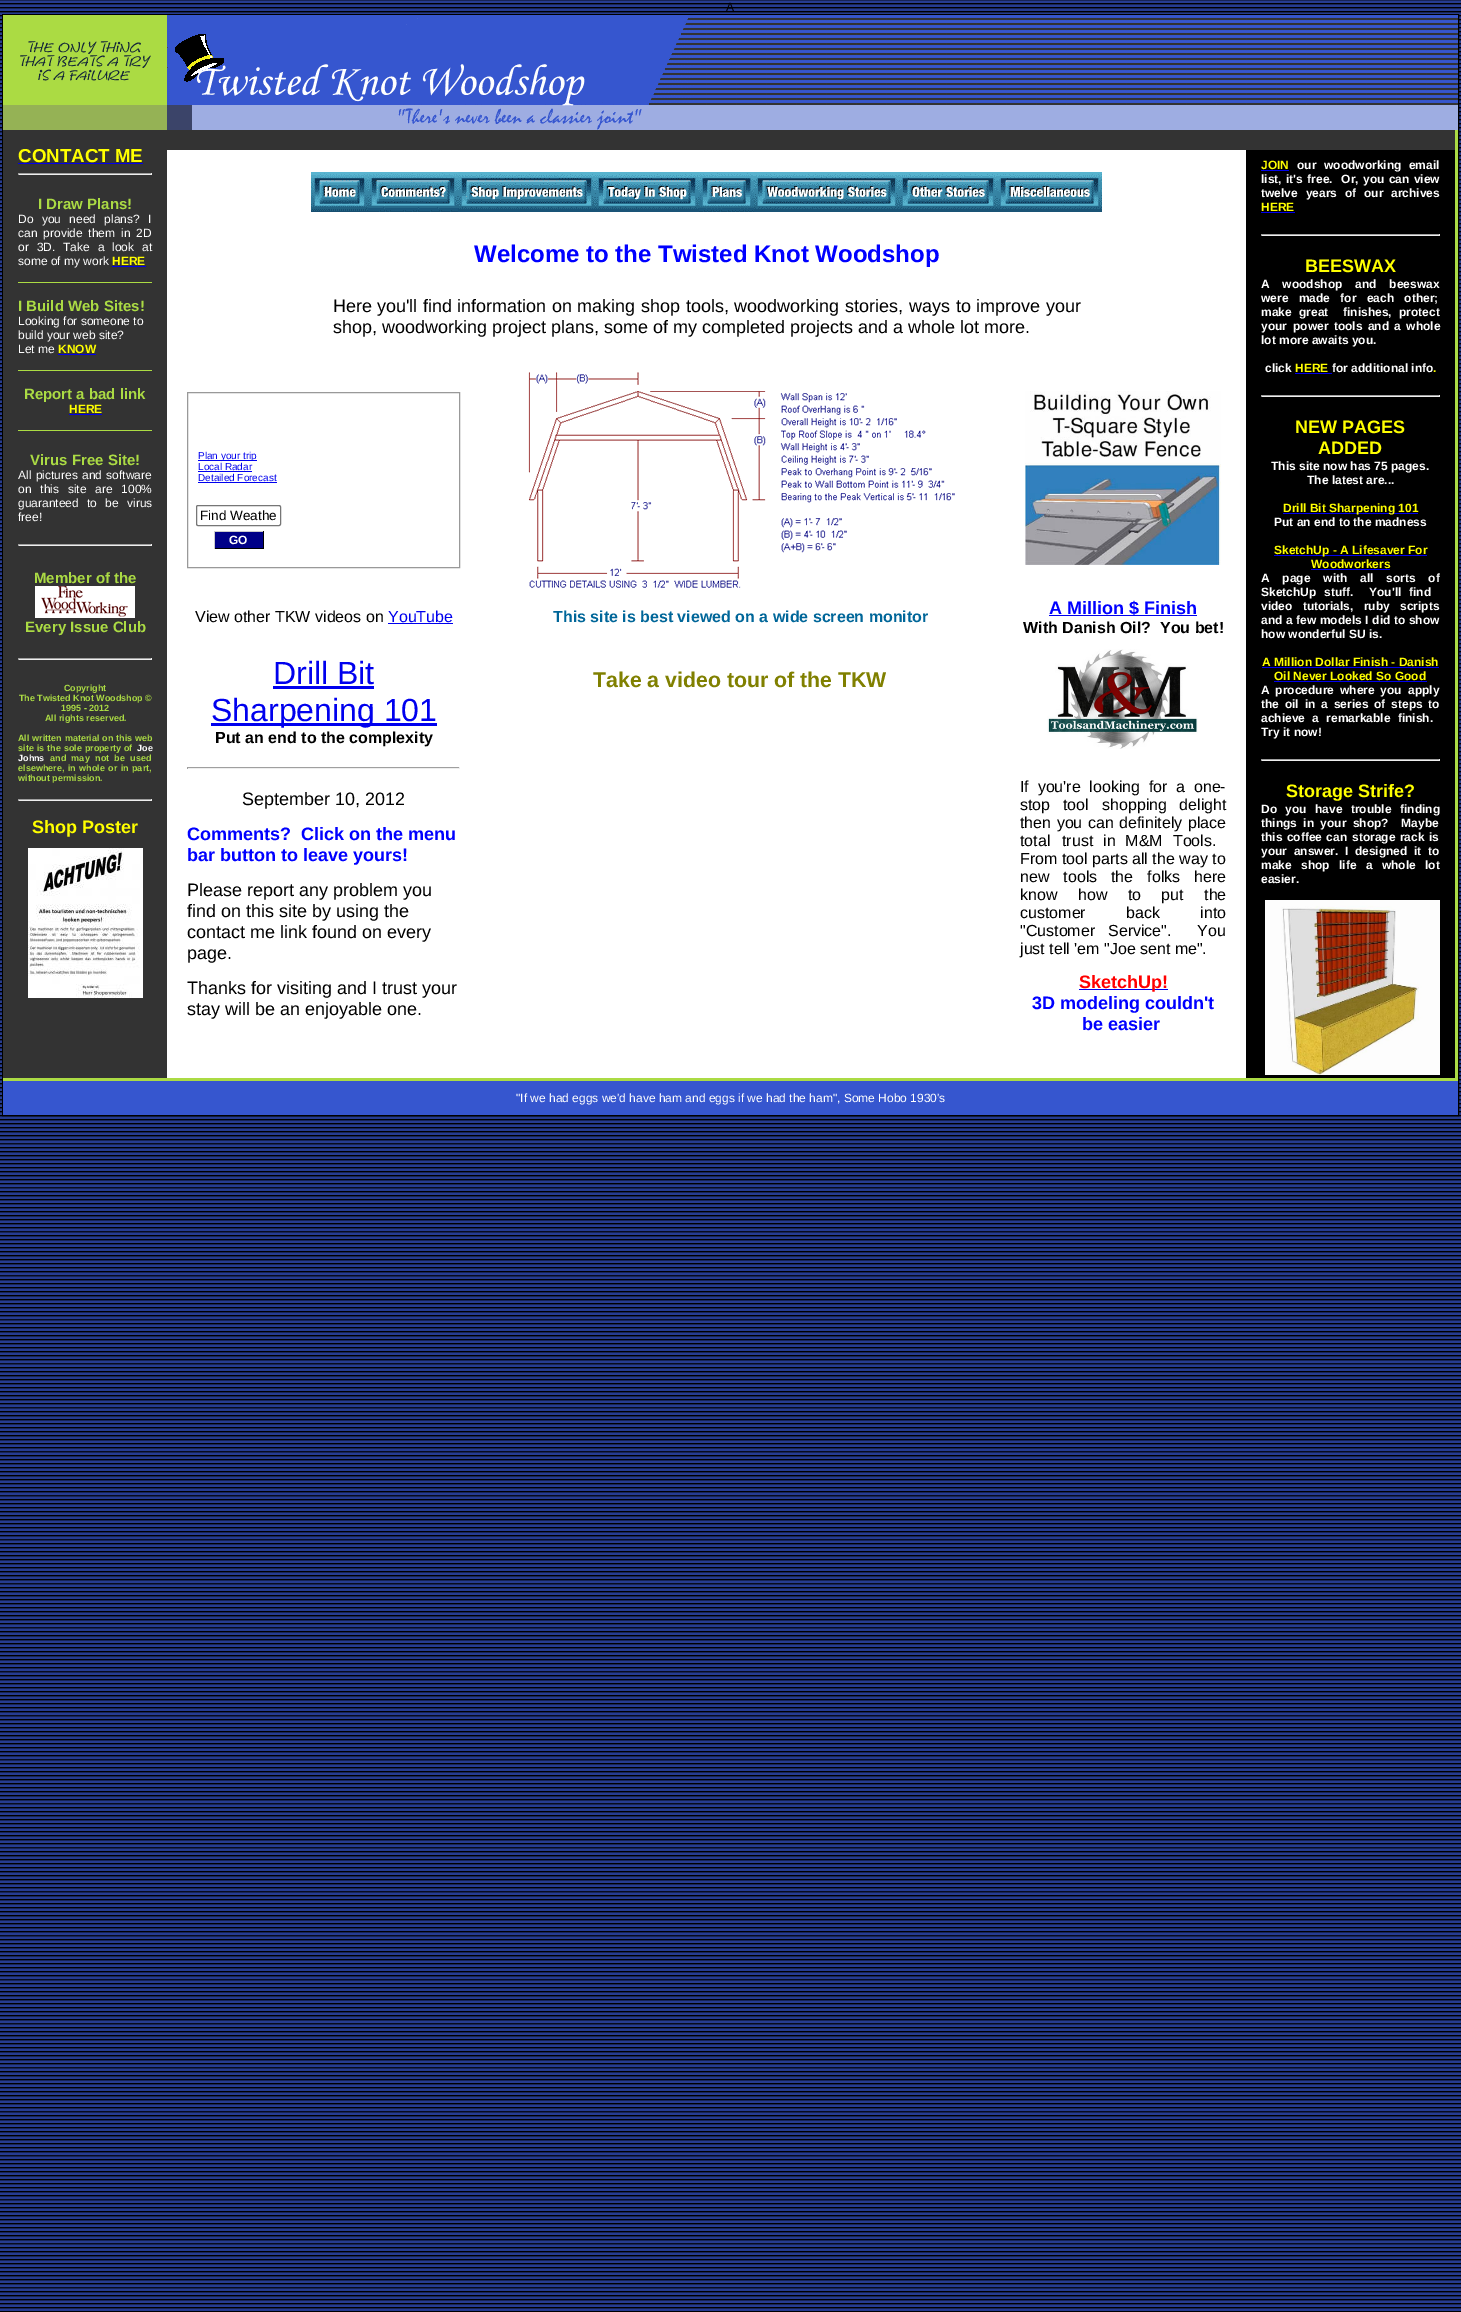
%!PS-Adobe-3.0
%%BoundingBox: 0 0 1461 2312
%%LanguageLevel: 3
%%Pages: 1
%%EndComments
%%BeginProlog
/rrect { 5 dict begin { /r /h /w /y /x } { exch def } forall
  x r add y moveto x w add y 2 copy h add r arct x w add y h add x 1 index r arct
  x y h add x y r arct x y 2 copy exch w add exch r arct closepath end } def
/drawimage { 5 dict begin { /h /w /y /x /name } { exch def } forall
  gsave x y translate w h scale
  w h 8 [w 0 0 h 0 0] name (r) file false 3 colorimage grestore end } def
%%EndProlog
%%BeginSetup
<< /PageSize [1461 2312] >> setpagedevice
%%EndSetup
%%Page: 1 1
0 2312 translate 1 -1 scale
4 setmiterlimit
1 setgray
0 0 1461 2312 rectfill
(images/1.raw) 0 0 1461 2312 drawimage
0 setgray
2.5 14.5 1456 1101 rectstroke
(images/2.raw) 3 15 164 115 drawimage
(images/3.raw) 694 15 764 115 drawimage
(images/4.raw) 167 15 527 115 drawimage
0.2 setgray
3 130 164 948 rectfill
0.671 0.859 0.267 setrgbcolor
3 1078 1243 3 rectfill
0 0 0.933 setrgbcolor
18 163 125 1 rectfill
0.624 setgray
18 173 134 1 rectfill
0.933 setgray
151 173 1 2 rectfill
18 174 134 1 rectfill
0.624 setgray
18 173 1 2 rectfill
0 0 0.933 setrgbcolor
112 266 34 1 rectfill
0.671 0.859 0.263 setrgbcolor
18 282 134 1 rectfill
0 0 0.933 setrgbcolor
58 354 38 1 rectfill
0.671 0.859 0.263 setrgbcolor
18 370 134 1 rectfill
0 0 0.933 setrgbcolor
69 414 33 1 rectfill
0.671 0.859 0.263 setrgbcolor
18 430 134 1 rectfill
0.624 setgray
18 544 134 1 rectfill
0.933 setgray
151 544 1 2 rectfill
18 545 134 1 rectfill
0.624 setgray
18 544 1 2 rectfill
(images/5.raw) 35 586 100 32 drawimage
18 658 134 1 rectfill
0.933 setgray
151 658 1 2 rectfill
18 659 134 1 rectfill
0.624 setgray
18 658 1 2 rectfill
18 799 134 1 rectfill
0.933 setgray
151 799 1 2 rectfill
18 800 134 1 rectfill
0.624 setgray
18 799 1 2 rectfill
(images/6.raw) 28 848 115 150 drawimage
1 setgray
167 150 1079 928 rectfill
0.2 setgray
167 130 1288 20 rectfill
(images/7.raw) 311 172 57 40 drawimage
(images/8.raw) 368 172 90 40 drawimage
(images/9.raw) 458 172 137 40 drawimage
(images/10.raw) 595 172 104 40 drawimage
(images/11.raw) 699 172 55 40 drawimage
(images/12.raw) 754 172 145 40 drawimage
(images/13.raw) 899 172 98 40 drawimage
(images/14.raw) 997 172 105 40 drawimage
0.6 setgray
187.5 392.5 272 175 rectstroke
0 0 0.933 setrgbcolor
198 460 59 1 rectfill
198 471 54 1 rectfill
198 482 79 1 rectfill
0.463 setgray
196.5 505.5 84 20 1.5 rrect stroke
0 0 0.533 setrgbcolor
215 532 48 16 rectfill
0.8 setgray
214 531 50 1 rectfill
0 setgray
263 531 1 18 rectfill
214 548 50 1 rectfill
0.8 setgray
214 531 1 18 rectfill
(images/15.raw) 528 372 427 216 drawimage
(images/16.raw) 1025 391 196 174 drawimage
0 0 0.933 setrgbcolor
388 623 65 1 rectfill
1049 615 148 1 rectfill
273 686 101 3 rectfill
211 723 226 3 rectfill
0.624 setgray
187 767 273 1 rectfill
0.933 setgray
459 767 1 2 rectfill
187 768 273 1 rectfill
0.624 setgray
187 767 1 2 rectfill
(images/17.raw) 1047 649 151 100 drawimage
0 0 0.933 setrgbcolor
1079 989 89 1 rectfill
0 setgray
1246 150 209 928 rectfill
0.671 0.859 0.267 setrgbcolor
1455 130 3 951 rectfill
1246 1078 212 3 rectfill
0 0 0.933 setrgbcolor
1261 170 28 1 rectfill
1261 212 34 1 rectfill
0.624 setgray
1261 234 179 1 rectfill
0.933 setgray
1439 234 1 2 rectfill
1261 235 179 1 rectfill
0.624 setgray
1261 234 1 2 rectfill
0 0 0.933 setrgbcolor
1295 373 37 1 rectfill
0.624 setgray
1261 395 179 1 rectfill
0.933 setgray
1439 395 1 2 rectfill
1261 396 179 1 rectfill
0.624 setgray
1261 395 1 2 rectfill
0 0 0.933 setrgbcolor
1283 513 135 1 rectfill
1274 555 153 1 rectfill
1311 569 79 1 rectfill
1262 667 177 1 rectfill
1274 681 153 1 rectfill
0.624 setgray
1261 759 179 1 rectfill
0.933 setgray
1439 759 1 2 rectfill
1261 760 179 1 rectfill
0.624 setgray
1261 759 1 2 rectfill
(images/18.raw) 1265 900 175 175 drawimage
0.212 0.337 0.812 setrgbcolor
3 1081 1455 34 rectfill
/LiberationSans-Regular [12 0 0 -12 0 0] selectfont
0 setgray
726 11 moveto (A) show
/LiberationSans-Bold [18.75 0 0 -18.75 0 0] selectfont
1 1 0 setrgbcolor
18 162 moveto (CONTACT ME) show
/LiberationSans-Bold [15 0 0 -15 0 0] selectfont
0.671 0.859 0.267 setrgbcolor
38 209 moveto (I Draw Plans!) show
/LiberationSans-Regular [12 0 0 -12 0 0] selectfont
1 setgray
18 223 moveto 5 0 32 (Do you need plans? I) widthshow
18 237 moveto 2.5 0 32 (can provide them in 2D) widthshow
18 251 moveto 4.5 0 32 (or 3D. Take a look at) widthshow
18 265 moveto (some of my work) show
/LiberationSans-Bold [12 0 0 -12 0 0] selectfont
1 1 0 setrgbcolor
112 265 moveto (HERE) show
/LiberationSans-Bold [15 0 0 -15 0 0] selectfont
0.671 0.859 0.267 setrgbcolor
18 311 moveto (I Build Web Sites!) show
/LiberationSans-Regular [12 0 0 -12 0 0] selectfont
1 setgray
18 325 moveto (Looking for someone to) show
18 339 moveto (build your web site?) show
18 353 moveto (Let me) show
/LiberationSans-Bold [12 0 0 -12 0 0] selectfont
1 1 0 setrgbcolor
58 353 moveto (KNOW) show
/LiberationSans-Bold [15 0 0 -15 0 0] selectfont
0.671 0.859 0.267 setrgbcolor
24 399 moveto (Report a bad link) show
/LiberationSans-Bold [12 0 0 -12 0 0] selectfont
1 1 0 setrgbcolor
69 413 moveto (HERE) show
/LiberationSans-Bold [15 0 0 -15 0 0] selectfont
0.671 0.859 0.267 setrgbcolor
30 465 moveto (Virus Free Site!) show
/LiberationSans-Regular [12 0 0 -12 0 0] selectfont
1 setgray
18 479 moveto 1 0 32 (All pictures and software) widthshow
18 493 moveto 5.5 0 32 (on this site are 100%) widthshow
18 507 moveto 5 0 32 (guaranteed to be virus) widthshow
18 521 moveto (free!) show
/LiberationSans-Bold [15 0 0 -15 0 0] selectfont
0.671 0.859 0.267 setrgbcolor
34 583 moveto (Member of the) show
25 632 moveto (Every Issue Club) show
/LiberationSans-Bold [9 0 0 -9 0 0] selectfont
64 691 moveto (Copyright) show
19 701 moveto (The Twisted Knot Woodshop ©) show
61 711 moveto (1995 - 2012) show
45 721 moveto (All rights reserved.) show
18 741 moveto 0.5 0 32 (All written material on this web) widthshow
18 751 moveto 0.5 0 32 (site is the sole property of) widthshow
1 setgray
137 751 moveto (Joe) show
18 761 moveto (Johns) show
0.671 0.859 0.267 setrgbcolor
50 761 moveto 3 0 32 (and may not be used) widthshow
18 771 moveto 1 0 32 (elsewhere, in whole or in part,) widthshow
18 781 moveto (without permission.) show
/LiberationSans-Bold [18 0 0 -18 0 0] selectfont
1 1 0 setrgbcolor
32 833 moveto (Shop Poster) show
/LiberationSans-Bold [24 0 0 -24 0 0] selectfont
0 0 1 setrgbcolor
474 262 moveto (Welcome to the Twisted Knot Woodshop) show
/LiberationSans-Regular [18 0 0 -18 0 0] selectfont
0 setgray
333 312 moveto (Here) show
377 312 moveto 0.5 0 32 (you'll find information on making shop tools, woodworking stories,) widthshow
909 312 moveto 0.5 0 32 (ways to improve your) widthshow
333 333 moveto (shop, woodworking project plans, some of my completed projects and a whole lot more.) show
/LiberationSans-Regular [10 0 0 -10 0 0] selectfont
0 0 0.933 setrgbcolor
198 459 moveto (Plan your trip) show
198 470 moveto (Local Radar) show
198 481 moveto (Detailed Forecast) show
/LiberationSans-Regular [13.5 0 0 -13.5 0 0] selectfont
0 setgray
200 520 moveto (Find Weathe) show
/LiberationSans-Bold [12 0 0 -12 0 0] selectfont
1 setgray
229 544 moveto (GO) show
/LiberationSans-Regular [16 0 0 -16 0 0] selectfont
0 setgray
195 622 moveto (View other TKW videos on) show
0 0 0.933 setrgbcolor
388 622 moveto (YouTube) show
/LiberationSans-Bold [16 0 0 -16 0 0] selectfont
0 0.4 0.6 setrgbcolor
553 622 moveto (This site is best viewed on a wide screen monitor) show
/LiberationSans-Bold [18 0 0 -18 0 0] selectfont
0 0 1 setrgbcolor
1049 614 moveto (A Million $ Finish) show
/LiberationSans-Bold [16 0 0 -16 0 0] selectfont
0 setgray
1023 633 moveto (With Danish Oil?  You bet!) show
/LiberationSans-Regular [32 0 0 -32 0 0] selectfont
0 0 0.933 setrgbcolor
273 684 moveto (Drill Bit) show
211 721 moveto (Sharpening 101) show
/LiberationSans-Bold [16 0 0 -16 0 0] selectfont
0 setgray
215 743 moveto (Put an end to the complexity) show
/LiberationSans-Regular [18 0 0 -18 0 0] selectfont
242 805 moveto (September 10, 2012) show
/LiberationSans-Bold [18 0 0 -18 0 0] selectfont
0 0 1 setrgbcolor
187 840 moveto (Comments?  Click on the menu) show
187 861 moveto (bar button to leave yours!) show
/LiberationSans-Regular [18 0 0 -18 0 0] selectfont
0 setgray
187 896 moveto (Please report any problem you) show
187 917 moveto (find on this site by using the) show
187 938 moveto (contact me link found on every) show
187 959 moveto (page.) show
187 994 moveto (Thanks for visiting and I trust your) show
187 1015 moveto (stay will be an enjoyable one.) show
/LiberationSans-Bold [21.3 0 0 -21.3 0 0] selectfont
0.502 0.502 0 setrgbcolor
593 687 moveto (Take a video tour of the TKW) show
/LiberationSans-Regular [16 0 0 -16 0 0] selectfont
0 setgray
1020 792 moveto 4.25 0 32 (If you're looking for a one-) widthshow
1020 810 moveto 8 0 32 (stop tool) widthshow
1102 810 moveto 8 0 32 (shopping delight) widthshow
1020 828 moveto 1 0 32 (then you can definitely place) widthshow
1020 846 moveto (total) show
1062 846 moveto 5.5 0 32 (trust in M&M Tools.) widthshow
1020 864 moveto (From tool parts all the way to) show
1020 882 moveto 9.5 0 32 (new tools the folks here) widthshow
1020 900 moveto 16 0 32 (know how to put the) widthshow
1020 918 moveto (customer) show
1126 918 moveto 36 0 32 (back into) widthshow
1020 936 moveto 8.5 0 32 ("Customer Service".  You) widthshow
1020 954 moveto (just tell 'em "Joe sent me".) show
/LiberationSans-Bold [18 0 0 -18 0 0] selectfont
1 0 0 setrgbcolor
1079 988 moveto (SketchUp!) show
0 0 1 setrgbcolor
1032 1009 moveto (3D modeling couldn't) show
1082 1030 moveto (be easier) show
/LiberationSans-Bold [12 0 0 -12 0 0] selectfont
1 1 0 setrgbcolor
1261 169 moveto (JOIN) show
1 setgray
1297 169 moveto 4.25 0 32 (our woodworking email) widthshow
1261 183 moveto (list,) show
1286 183 moveto 1 0 32 (it's free.  Or, you can view) widthshow
1261 197 moveto 4.5 0 32 (twelve years of our) widthshow
1391 197 moveto (archives) show
1 1 0 setrgbcolor
1261 211 moveto (HERE) show
/LiberationSans-Bold [18 0 0 -18 0 0] selectfont
1305 272 moveto (BEESWAX) show
/LiberationSans-Bold [12 0 0 -12 0 0] selectfont
1 setgray
1261 288 moveto 9.5 0 32 (A woodshop and beeswax) widthshow
1261 302 moveto 7 0 32 (were made for each other;) widthshow
1261 316 moveto 4 0 32 (make great  finishes, protect) widthshow
1261 330 moveto (your) show
1293 330 moveto 2 0 32 (power tools and a whole) widthshow
1261 344 moveto (lot more awaits you.) show
1265 372 moveto (click) show
1 1 0 setrgbcolor
1295 372 moveto (HERE) show
1 setgray
1332 372 moveto (for additional info) show
1 1 0 setrgbcolor
1433 372 moveto (.) show
/LiberationSans-Bold [18 0 0 -18 0 0] selectfont
1295 433 moveto (NEW PAGES) show
1318 454 moveto (ADDED) show
/LiberationSans-Bold [12 0 0 -12 0 0] selectfont
1 setgray
1271 470 moveto (This site now has 75 pages.) show
1307 484 moveto (The latest are...) show
1 1 0 setrgbcolor
1283 512 moveto (Drill Bit Sharpening 101) show
1 setgray
1274 526 moveto (Put an end to the madness) show
1 1 0 setrgbcolor
1274 554 moveto (SketchUp - A Lifesaver For) show
1311 568 moveto (Woodworkers) show
1 setgray
1261 582 moveto 9.5 0 32 (A page with all sorts of) widthshow
1261 596 moveto 4.5 0 32 (SketchUp stuff.  You'll find) widthshow
1261 610 moveto 7 0 32 (video tutorials, ruby) widthshow
1400 610 moveto (scripts) show
1261 624 moveto 0.25 0 32 (and a few models I did to show) widthshow
1261 638 moveto (how wonderful SU is.) show
1 1 0 setrgbcolor
1262 666 moveto (A Million Dollar Finish - Danish) show
1274 680 moveto (Oil Never Looked So Good) show
1 setgray
1261 694 moveto 2.5 0 32 (A procedure where you) widthshow
1408 694 moveto (apply) show
1261 708 moveto 2.5 0 32 (the oil in a series of steps to) widthshow
1261 722 moveto 4 0 32 (achieve a remarkable finish.) widthshow
1261 736 moveto (Try it now!) show
/LiberationSans-Bold [18 0 0 -18 0 0] selectfont
1 1 0 setrgbcolor
1286 797 moveto (Storage Strife?) show
/LiberationSans-Bold [12 0 0 -12 0 0] selectfont
1 setgray
1261 813 moveto 5 0 32 (Do you have trouble) widthshow
1400 813 moveto (finding) show
1261 827 moveto 3 0 32 (things in your shop?  Maybe) widthshow
1261 841 moveto 1 0 32 (this coffee can) widthshow
1352 841 moveto 1 0 32 (storage rack is) widthshow
1261 855 moveto 3.25 0 32 (your answer. I designed it to) widthshow
1261 869 moveto 6 0 32 (make shop) widthshow
1339 869 moveto 6 0 32 (life a whole lot) widthshow
1261 883 moveto (easier.) show
/LiberationSans-Regular [12 0 0 -12 0 0] selectfont
516 1102 moveto ("If we had eggs we'd have ham and eggs if we had the ham", Some Hobo 1930's) show
showpage
%%EOF
